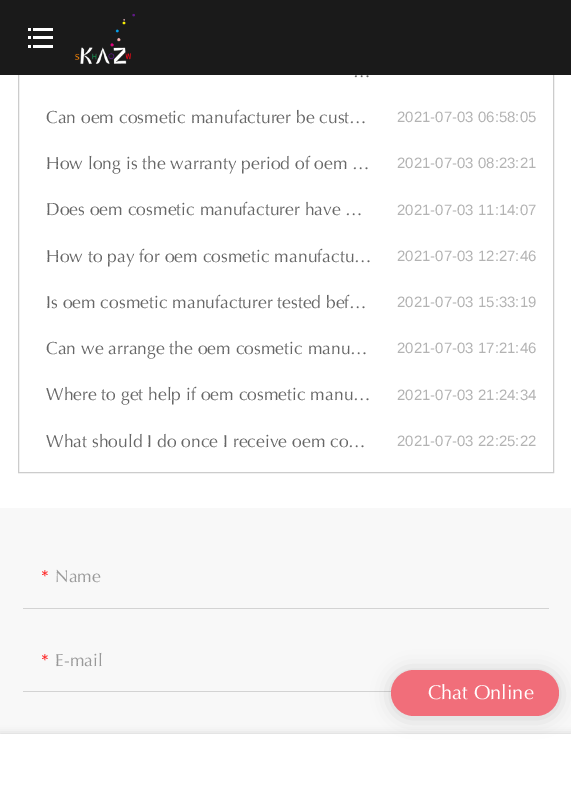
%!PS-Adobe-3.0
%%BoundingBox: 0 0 571 803
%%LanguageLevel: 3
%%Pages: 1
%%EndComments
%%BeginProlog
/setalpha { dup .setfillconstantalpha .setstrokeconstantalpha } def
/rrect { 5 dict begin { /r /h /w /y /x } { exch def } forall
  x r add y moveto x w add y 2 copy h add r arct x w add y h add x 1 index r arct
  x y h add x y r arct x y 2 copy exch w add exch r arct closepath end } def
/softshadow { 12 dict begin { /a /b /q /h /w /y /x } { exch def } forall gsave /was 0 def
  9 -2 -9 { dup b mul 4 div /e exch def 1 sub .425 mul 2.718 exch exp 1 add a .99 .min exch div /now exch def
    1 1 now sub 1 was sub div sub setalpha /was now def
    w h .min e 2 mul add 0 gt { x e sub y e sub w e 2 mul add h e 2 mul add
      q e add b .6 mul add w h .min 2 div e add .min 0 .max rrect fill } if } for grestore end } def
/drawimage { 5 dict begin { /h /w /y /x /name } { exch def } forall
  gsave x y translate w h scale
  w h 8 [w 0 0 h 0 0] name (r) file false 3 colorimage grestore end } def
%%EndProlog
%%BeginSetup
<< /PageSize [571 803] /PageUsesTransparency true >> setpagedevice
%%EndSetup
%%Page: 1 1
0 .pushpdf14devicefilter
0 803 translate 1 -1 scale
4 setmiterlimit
1 setgray
0 0 571 803 rectfill
0.8 setgray
18.5 -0.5 535 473 rectstroke
0.102 setgray
0 0 571 75 rectfill
1 setgray
33 28 20 3 rectfill
28 28 3 3 rectfill
33 36 20 3 rectfill
28 36 3 3 rectfill
33 45 20 3 rectfill
28 45 3 3 rectfill
(images/1.raw) 75 13 60 51 drawimage
0.973 setgray
0 508 571 226 rectfill
0.827 setgray
23 608 526 1 rectfill
23 691 369 1 rectfill
0 setgray
0 734 571 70 0 4 0.16 softshadow
1 setgray
0 734 571 69 rectfill
0 setgray
391 671 168 47 23.5 9.5 0.15 softshadow
0.945 0.431 0.478 setrgbcolor
391 670 168 46 23 rrect fill
/Optima-Regular [17.5 0 0 -17.5 0 0] selectfont
0.4 setgray
353 77 moveto (…) show
46 123 moveto (Can oem cosmetic manufacturer be cust…) show
/LiberationSans-Regular [15 0 0 -15 0 0] selectfont
0.702 setgray
397 122 moveto (2021-07-03 06:58:05) show
/Optima-Regular [17.5 0 0 -17.5 0 0] selectfont
0.4 setgray
46 169 moveto (How long is the warranty period of oem …) show
/LiberationSans-Regular [15 0 0 -15 0 0] selectfont
0.702 setgray
397 168 moveto (2021-07-03 08:23:21) show
/Optima-Regular [17.5 0 0 -17.5 0 0] selectfont
0.4 setgray
46 215 moveto (Does oem cosmetic manufacturer have …) show
/LiberationSans-Regular [15 0 0 -15 0 0] selectfont
0.702 setgray
397 215 moveto (2021-07-03 11:14:07) show
/Optima-Regular [17.5 0 0 -17.5 0 0] selectfont
0.4 setgray
46 262 moveto (How to pay for oem cosmetic manufactu…) show
/LiberationSans-Regular [15 0 0 -15 0 0] selectfont
0.702 setgray
397 261 moveto (2021-07-03 12:27:46) show
/Optima-Regular [17.5 0 0 -17.5 0 0] selectfont
0.4 setgray
46 308 moveto (Is oem cosmetic manufacturer tested bef…) show
/LiberationSans-Regular [15 0 0 -15 0 0] selectfont
0.702 setgray
397 307 moveto (2021-07-03 15:33:19) show
/Optima-Regular [17.5 0 0 -17.5 0 0] selectfont
0.4 setgray
46 354 moveto (Can we arrange the oem cosmetic manu…) show
/LiberationSans-Regular [15 0 0 -15 0 0] selectfont
0.702 setgray
397 353 moveto (2021-07-03 17:21:46) show
/Optima-Regular [17.5 0 0 -17.5 0 0] selectfont
0.4 setgray
46 400 moveto (Where to get help if oem cosmetic manu…) show
/LiberationSans-Regular [15 0 0 -15 0 0] selectfont
0.702 setgray
397 400 moveto (2021-07-03 21:24:34) show
/Optima-Regular [17.5 0 0 -17.5 0 0] selectfont
0.4 setgray
46 447 moveto (What should I do once I receive oem co…) show
/LiberationSans-Regular [15 0 0 -15 0 0] selectfont
0.702 setgray
397 446 moveto (2021-07-03 22:25:22) show
/Optima-Regular [17.5 0 0 -17.5 0 0] selectfont
1 0 0 setrgbcolor
41 582 moveto (*) show
0.6 setgray
55 582 moveto (Name) show
1 0 0 setrgbcolor
41 666 moveto (*) show
0.6 setgray
55 666 moveto (E-mail) show
/Optima-Regular [20 0 0 -20 0 0] selectfont
1 setgray
428 699 moveto (Chat Online) show
.poppdf14devicefilter showpage
%%EOF
